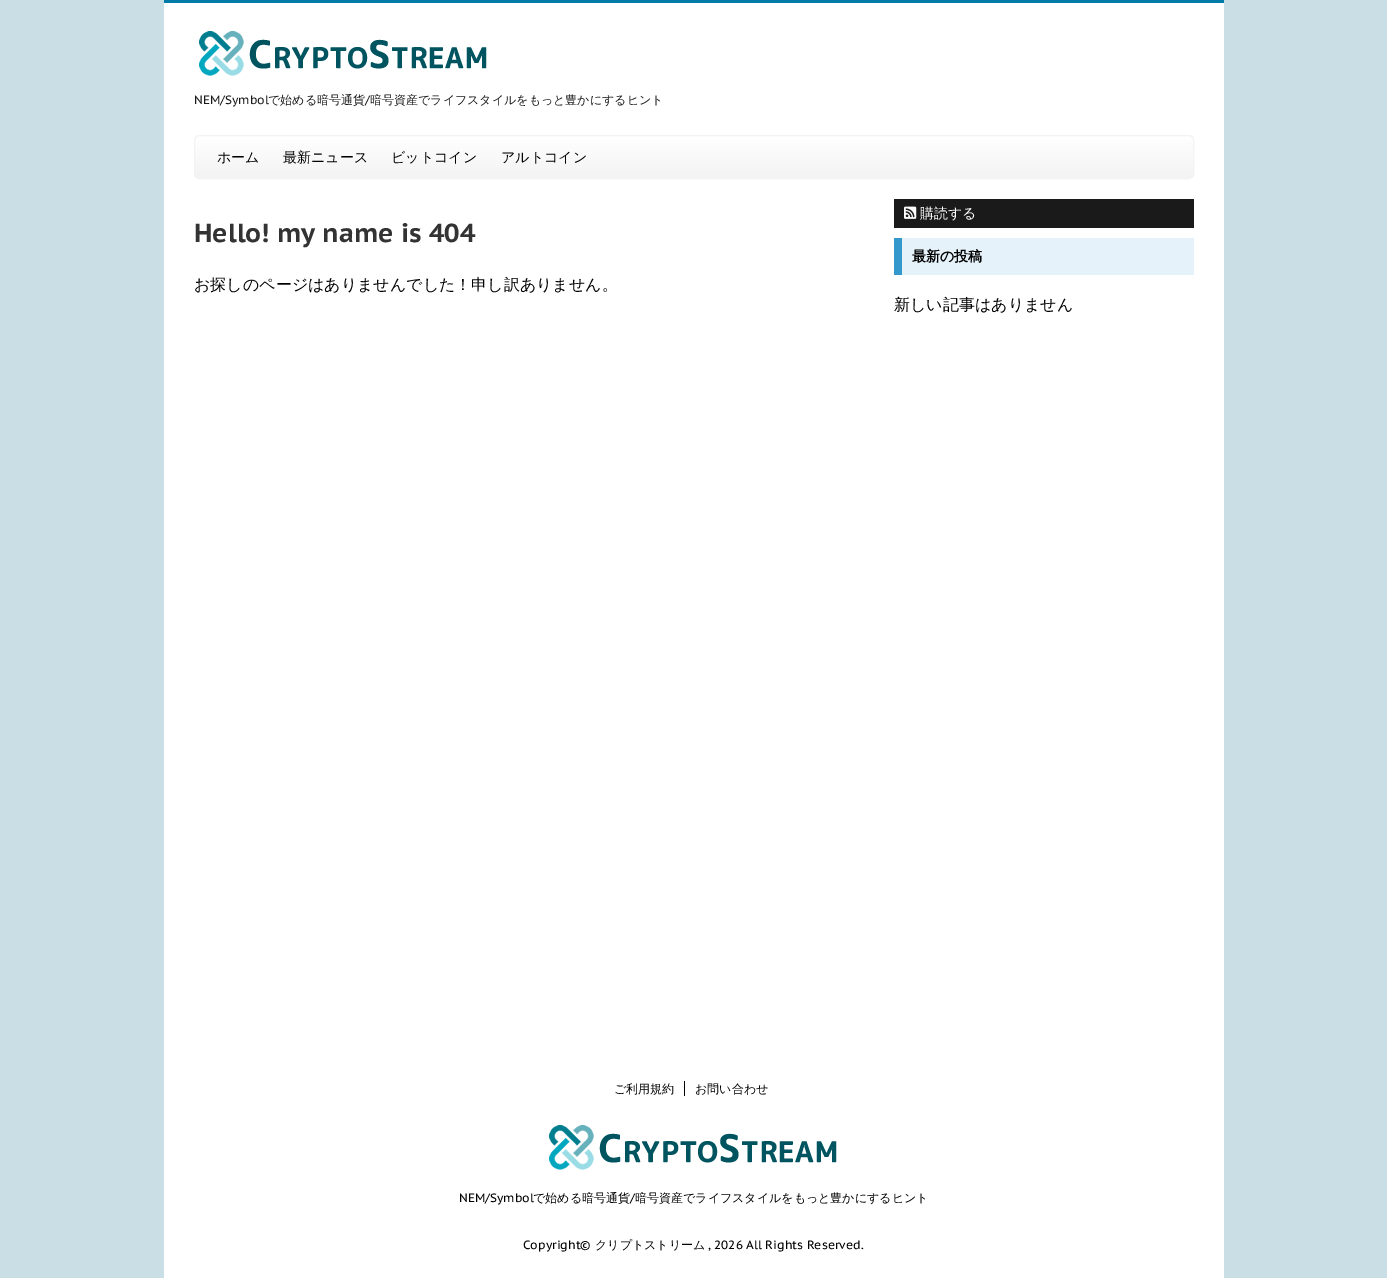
%!PS-Adobe-3.0
%%BoundingBox: 0 0 1387 1278
%%LanguageLevel: 3
%%Pages: 1
%%EndComments
%%BeginProlog
/rrect { 5 dict begin { /r /h /w /y /x } { exch def } forall
  x r add y moveto x w add y 2 copy h add r arct x w add y h add x 1 index r arct
  x y h add x y r arct x y 2 copy exch w add exch r arct closepath end } def
/drawimage { 5 dict begin { /h /w /y /x /name } { exch def } forall
  gsave x y translate w h scale
  w h 8 [w 0 0 h 0 0] name (r) file false 3 colorimage grestore end } def
%%EndProlog
%%BeginSetup
<< /PageSize [1387 1278] >> setpagedevice
%%EndSetup
%%Page: 1 1
0 1278 translate 1 -1 scale
4 setmiterlimit
0.788 0.871 0.898 setrgbcolor
0 0 1387 1278 rectfill
1 setgray
164 3 1060 1275 rectfill
0 0.482 0.659 setrgbcolor
164 0 1060 3 rectfill
(images/1.raw) 199 31 288 45 drawimage
gsave
194 135 1000 44 5 rrect clip newpath
gsave newpath 194 136 moveto 1194 136 lineto 1194 178 lineto 194 178 lineto closepath clip newpath
<< /ShadingType 2 /ColorSpace /DeviceRGB /Coords [694 136 694 178] /Extend [true true] /Function << /FunctionType 2 /Domain [0 1] /C0 [1 1 1] /C1 [0.953 0.953 0.953] /N 1 >> >> shfill grestore
grestore
0.953 setgray
194.5 135.5 999 43 4.5 rrect stroke
0.102 setgray
894 199 300 29 rectfill
(images/2.raw) 904 206 13 13 drawimage
0.902 0.949 0.976 setrgbcolor
902 238 292 37 rectfill
0.2 0.596 0.8 setrgbcolor
894 238 8 37 rectfill
0 setgray
684 1081 1 15 rectfill
(images/1.raw) 549 1125 288 45 drawimage
/PTSansCaption-Regular [12 0 0 -12 0 0] selectfont
0.102 setgray
194 104 moveto (NEM/Symbol) show
/WenQuanYiZenHei-Medium [12 0 0 -12 0 0] selectfont
268 104 moveto (で始める暗号通貨) show
/PTSansCaption-Regular [12 0 0 -12 0 0] selectfont
365 104 moveto (/) show
/WenQuanYiZenHei-Medium [12 0 0 -12 0 0] selectfont
370 104 moveto (暗号資産でライフスタイルをもっと豊かにするヒント) show
/WenQuanYiZenHei-Medium [14 0 0 -14 0 0] selectfont
0 setgray
217 162 moveto (ホーム) show
283 162 moveto (最新ニュース) show
391 162 moveto (ビットコイン) show
501 162 moveto (アルトコイン) show
/PTSansCaption-Bold [26 0 0 -26 0 0] selectfont
0.2 setgray
194 242 moveto (Hello! my name is 404) show
/WenQuanYiZenHei-Medium [16 0 0 -16 0 0] selectfont
0 setgray
194 290 moveto (お探しのページはありませんでした！申し訳ありません。) show
/WenQuanYiZenHei-Medium [14 0 0 -14 0 0] selectfont
1 setgray
920 218 moveto (購読する) show
/WenQuanYiZenHei-Bold [14 0 0 -14 0 0] selectfont
0 setgray
912 261 moveto (最新の投稿) show
/WenQuanYiZenHei-Medium [16 0 0 -16 0 0] selectfont
894 310 moveto (新しい記事はありません) show
/WenQuanYiZenHei-Medium [12 0 0 -12 0 0] selectfont
614 1093 moveto (ご利用規約) show
695 1093 moveto (お問い合わせ) show
/PTSansCaption-Regular [12 0 0 -12 0 0] selectfont
459 1202 moveto (NEM/Symbol) show
/WenQuanYiZenHei-Medium [12 0 0 -12 0 0] selectfont
533 1202 moveto (で始める暗号通貨) show
/PTSansCaption-Regular [12 0 0 -12 0 0] selectfont
630 1202 moveto (/) show
/WenQuanYiZenHei-Medium [12 0 0 -12 0 0] selectfont
635 1202 moveto (暗号資産でライフスタイルをもっと豊かにするヒント) show
/PTSansCaption-Regular [12 0 0 -12 0 0] selectfont
523 1249 moveto (Copyright©) show
/WenQuanYiZenHei-Medium [12 0 0 -12 0 0] selectfont
595 1249 moveto (クリプトストリーム) show
/PTSansCaption-Regular [12 0 0 -12 0 0] selectfont
708 1249 moveto (, 2026 All Rights Reserved.) show
showpage
%%EOF
